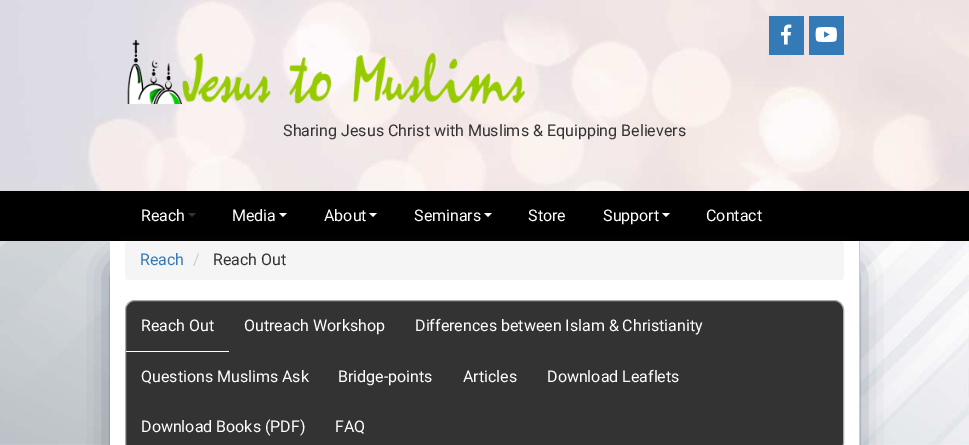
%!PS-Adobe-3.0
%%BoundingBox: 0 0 969 445
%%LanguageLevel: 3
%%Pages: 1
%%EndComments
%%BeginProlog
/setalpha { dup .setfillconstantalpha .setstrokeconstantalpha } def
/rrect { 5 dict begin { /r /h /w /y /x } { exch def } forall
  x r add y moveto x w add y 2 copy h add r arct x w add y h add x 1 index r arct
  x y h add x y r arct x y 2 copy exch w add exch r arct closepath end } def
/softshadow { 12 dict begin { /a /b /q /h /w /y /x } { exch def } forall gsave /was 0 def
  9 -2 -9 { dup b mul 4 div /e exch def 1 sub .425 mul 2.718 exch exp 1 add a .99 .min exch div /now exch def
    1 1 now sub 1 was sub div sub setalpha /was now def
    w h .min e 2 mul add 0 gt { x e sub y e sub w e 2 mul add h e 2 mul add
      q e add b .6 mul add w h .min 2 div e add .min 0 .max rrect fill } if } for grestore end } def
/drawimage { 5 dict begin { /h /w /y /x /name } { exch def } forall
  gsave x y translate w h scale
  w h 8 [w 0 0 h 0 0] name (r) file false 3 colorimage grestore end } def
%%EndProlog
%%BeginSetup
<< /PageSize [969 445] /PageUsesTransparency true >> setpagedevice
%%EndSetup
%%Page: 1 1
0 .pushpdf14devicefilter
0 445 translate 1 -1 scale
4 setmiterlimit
1 setgray
0 0 969 445 rectfill
(images/1.raw) 0 0 969 445 drawimage
(images/2.raw) 0 0 969 191 drawimage
0.2 0.478 0.718 setrgbcolor
769 16 35 39 rectfill
(images/3.raw) 781 24 11 21 drawimage
809 16 35 39 rectfill
(images/4.raw) 815 27 22 15 drawimage
(images/5.raw) 127 40 398 64 drawimage
0 setgray
0 191 969 50 rectfill
0.2 setgray
newpath 188 213 moveto 196 213 lineto 192 217 lineto closepath fill
1 setgray
newpath 279 213 moveto 287 213 lineto 283 217 lineto closepath fill
newpath 369 213 moveto 377 213 lineto 373 217 lineto closepath fill
newpath 484 213 moveto 492 213 lineto 488 217 lineto closepath fill
newpath 662 213 moveto 670 213 lineto 666 217 lineto closepath fill
0.149 0.224 0.302 setrgbcolor
120 271 730 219 0 15 1 softshadow
1 setgray
110 241 749 204 rectfill
0.8 setgray
859 241 1 204 rectfill
0.961 setgray
125 241 719 39 4 rrect fill
0.2 setgray
125.5 300.5 718 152 9.5 rrect gsave fill grestore
0.667 setgray
stroke
1 setgray
126 351 103 1 rectfill
/Roboto-Regular [16 0 0 -16 0 0] selectfont
0.2 setgray
283 136 moveto (Sharing Jesus Christ with Muslims & Equipping Believers) show
1 setgray
141 221 moveto (Reach) show
232 221 moveto (Media) show
324 221 moveto (About) show
414 221 moveto (Seminars) show
528 221 moveto (Store) show
603 221 moveto (Support) show
706 221 moveto (Contact) show
0.2 0.478 0.718 setrgbcolor
140 265 moveto (Reach) show
0.8 setgray
193 265 moveto (/) show
0.2 setgray
213 265 moveto (Reach Out) show
1 setgray
141 331 moveto (Reach Out) show
244 331 moveto (Outreach Workshop) show
415 331 moveto (Differences between Islam & Christianity) show
141 382 moveto (Questions Muslims Ask) show
338 382 moveto (Bridge-points) show
463 382 moveto (Articles) show
547 382 moveto (Download Leaflets) show
141 432 moveto (Download Books \(PDF\)) show
335 432 moveto (FAQ) show
.poppdf14devicefilter showpage
%%EOF
